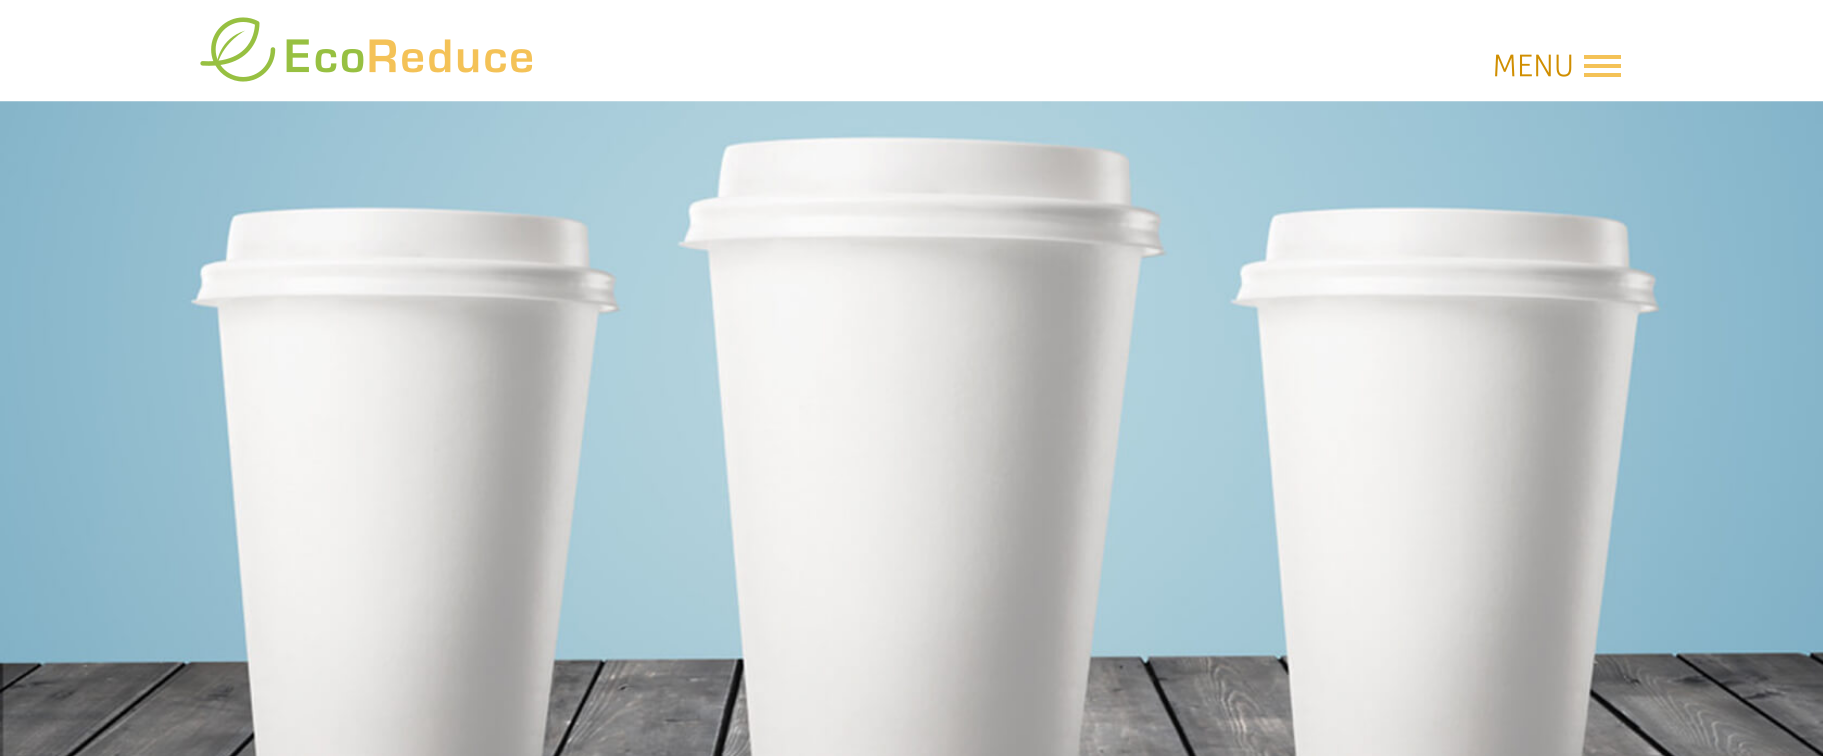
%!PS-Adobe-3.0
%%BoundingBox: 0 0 1823 756
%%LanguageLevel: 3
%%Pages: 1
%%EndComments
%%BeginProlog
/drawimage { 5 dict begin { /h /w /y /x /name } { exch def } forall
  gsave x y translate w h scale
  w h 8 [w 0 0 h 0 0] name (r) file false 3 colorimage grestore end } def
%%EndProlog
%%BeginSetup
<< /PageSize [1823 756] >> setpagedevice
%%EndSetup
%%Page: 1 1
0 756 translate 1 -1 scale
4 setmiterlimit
1 setgray
0 0 1823 756 rectfill
(images/1.raw) 200 17 333 65 drawimage
(images/2.raw) 1495 54 77 23 drawimage
0.957 0.761 0.341 setrgbcolor
1584 55 37 4 rectfill
1584 64 37 4 rectfill
1584 73 37 4 rectfill
(images/3.raw) 0 101 1823 655 drawimage
showpage
%%EOF
